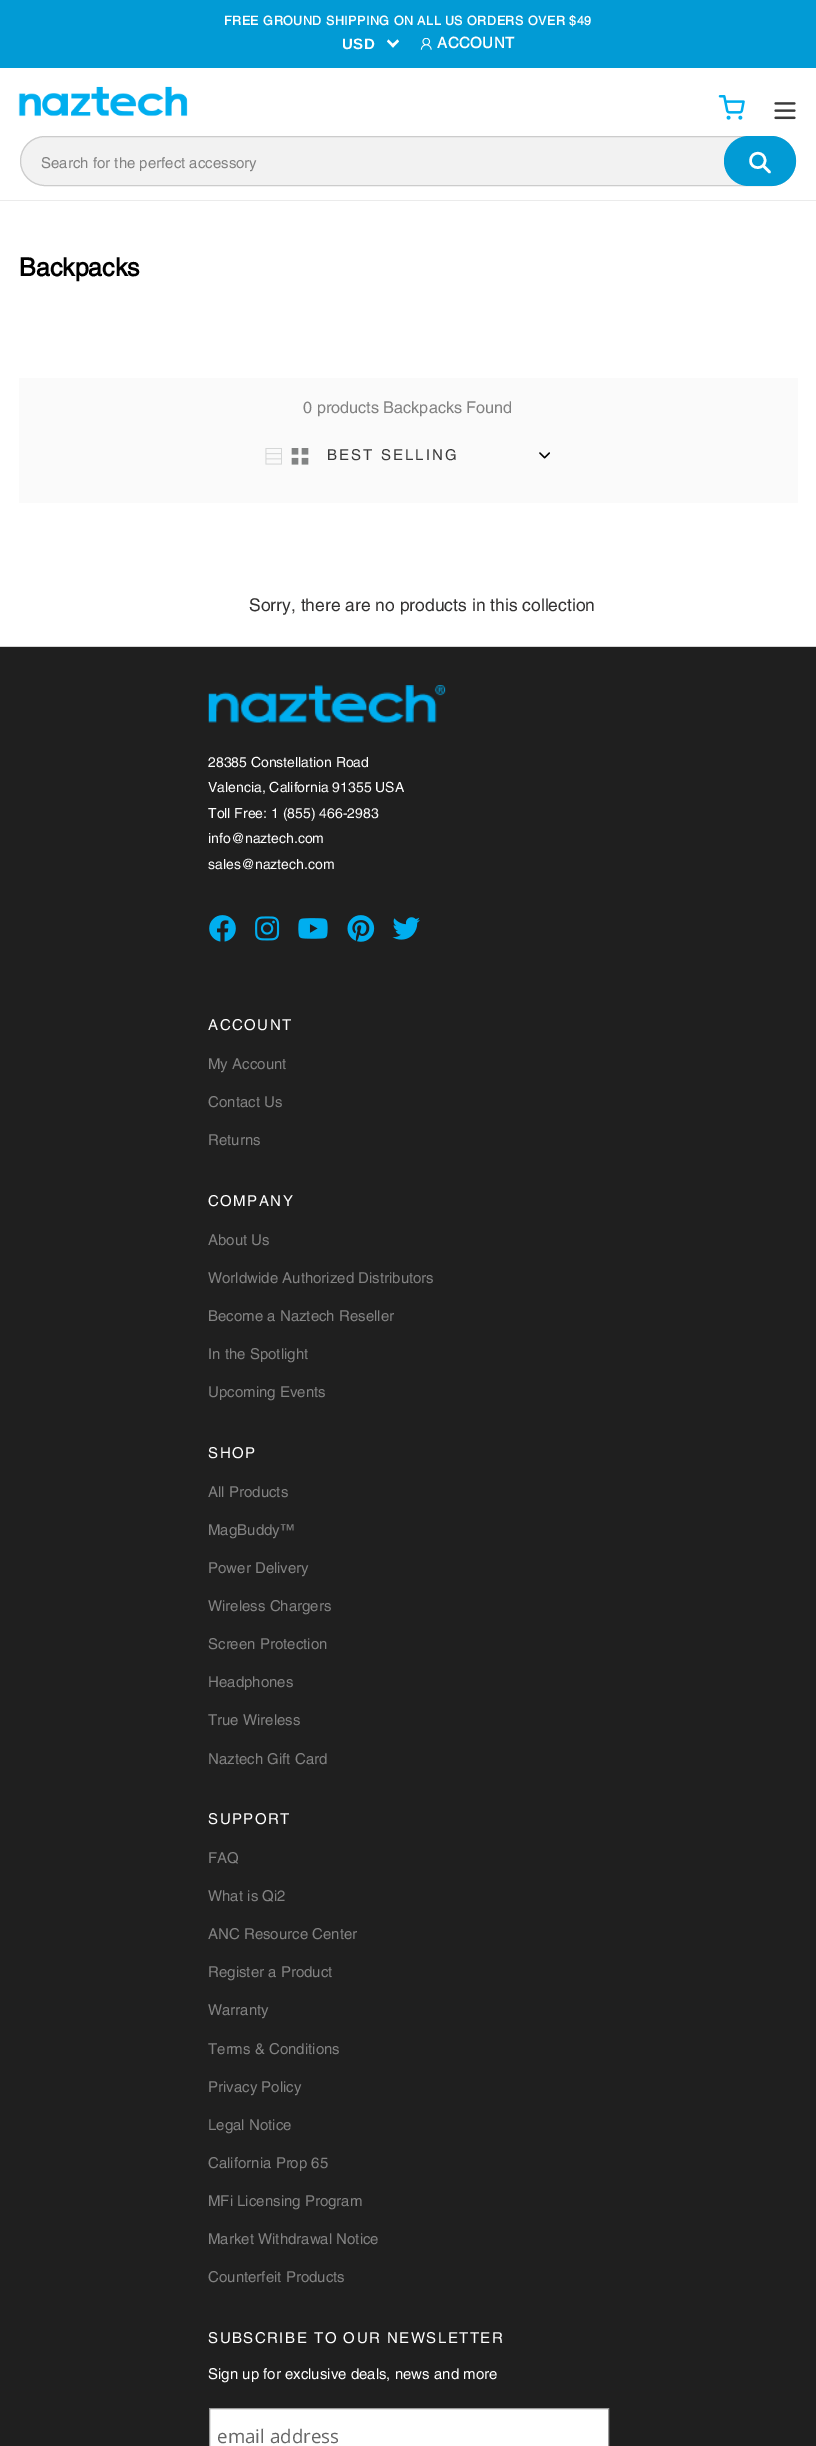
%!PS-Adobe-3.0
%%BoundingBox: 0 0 816 2446
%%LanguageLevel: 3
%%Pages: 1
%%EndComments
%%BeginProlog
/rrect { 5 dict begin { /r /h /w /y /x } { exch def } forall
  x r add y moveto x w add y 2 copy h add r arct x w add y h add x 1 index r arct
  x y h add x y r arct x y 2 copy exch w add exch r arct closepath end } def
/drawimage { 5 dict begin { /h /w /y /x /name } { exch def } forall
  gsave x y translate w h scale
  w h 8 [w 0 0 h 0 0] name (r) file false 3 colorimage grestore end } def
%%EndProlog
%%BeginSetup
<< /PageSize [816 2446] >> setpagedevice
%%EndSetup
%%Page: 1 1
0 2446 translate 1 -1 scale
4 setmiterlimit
1 setgray
0 0 816 2446 rectfill
0.008 0.608 0.835 setrgbcolor
0 0 816 68 rectfill
1 setgray
newpath 397.5 39.5 moveto 399 41.5 lineto 393 47.5 lineto 391 45.5 lineto closepath fill
newpath 388.5 39.5 moveto 394.5 45.5 lineto 393 47.5 lineto 387 41.5 lineto closepath fill
(images/1.raw) 420 38 12 12 drawimage
0.922 setgray
0 200 816 1 rectfill
(images/2.raw) 18 86 170 31 drawimage
(images/3.raw) 718 95 27 25 drawimage
(images/4.raw) 774 102 22 18 drawimage
0.949 setgray
20.5 136.5 775 49 24.5 rrect gsave fill grestore
0.8 setgray
stroke
0.008 0.608 0.835 setrgbcolor
724 136 72 50 25 rrect fill
1 setgray
2.5 setlinewidth
1 setlinecap
1 setlinejoin
newpath 769.5 172 moveto 763 165.5 lineto closepath 765 160.5 moveto 765 170 750.5 170 750.5 160.5 curveto 751 150.5 765 151 765 160.5 curveto closepath stroke
0.98 setgray
19 378 779 125 rectfill
(images/5.raw) 265 448 17 17 drawimage
(images/6.raw) 291 448 18 17 drawimage
(images/7.raw) 539 452 11 7 drawimage
0.122 setgray
0 647 816 1799 rectfill
0.839 setgray
0 646 816 1 rectfill
(images/8.raw) 208 685 238 38 drawimage
(images/9.raw) 209 915 27 27 drawimage
(images/10.raw) 255 916 25 25 drawimage
(images/11.raw) 298 918 30 21 drawimage
(images/12.raw) 347 915 28 27 drawimage
(images/13.raw) 392 917 28 23 drawimage
1 setgray
newpath 209.5 2408.5 moveto 608.5 2408.5 lineto 608.5 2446.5 lineto 209.5 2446.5 lineto closepath gsave fill grestore
0.6 setgray
1 setlinewidth
0 setlinecap
0 setlinejoin
stroke
/Helvetica-Bold [12.5 0 0 -12.5 0 0] selectfont
1 setgray
224 25 moveto 0.5 0 (FREE GROUND SHIPPING ON ALL US ORDERS OVER $49) ashow
/LiberationSans-Bold [15 0 0 -15 0 0] selectfont
342 49 moveto 0.5 0 (USD) ashow
/Helvetica-Bold [15 0 0 -15 0 0] selectfont
437 48 moveto 0.5 0 (ACCOUNT) ashow
/Helvetica-Medium [15 0 0 -15 0 0] selectfont
0.51 setgray
41 168 moveto (Search for the perfect accessory) show
/Helvetica-Bold [25 0 0 -25 0 0] selectfont
0 setgray
19 276 moveto (Backpacks) show
/Helvetica-Medium [16.25 0 0 -16.25 0 0] selectfont
0.51 setgray
303 413 moveto (0 products Backpacks Found) show
/Helvetica-Medium [15 0 0 -15 0 0] selectfont
0.227 setgray
327 460 moveto 2.1 0 (BEST SELLING) ashow
/Helvetica-Medium [17.5 0 0 -17.5 0 0] selectfont
0.2 0.196 0.196 setrgbcolor
249 611 moveto (Sorry, there are no products in this collection) show
/Helvetica-Medium [14 0 0 -14 0 0] selectfont
1 setgray
208 767 moveto (28385 Constellation Road) show
208 792 moveto (Valencia, California 91355 USA) show
208 818 moveto (Toll Free: 1 \(855\) 466-2983) show
208 843 moveto (info@naztech.com) show
208 869 moveto (sales@naztech.com) show
/Helvetica-Medium [15 0 0 -15 0 0] selectfont
208 1030 moveto 1.5 0 (ACCOUNT) ashow
0.51 setgray
208 1069 moveto (My Account) show
208 1107 moveto (Contact Us) show
208 1145 moveto (Returns) show
1 setgray
208 1206 moveto 1.5 0 (COMPANY) ashow
0.51 setgray
208 1245 moveto (About Us) show
208 1283 moveto (Worldwide Authorized Distributors) show
208 1321 moveto (Become a Naztech Reseller) show
208 1359 moveto (In the Spotlight) show
208 1397 moveto (Upcoming Events) show
1 setgray
208 1458 moveto 1.5 0 (SHOP) ashow
0.51 setgray
208 1497 moveto (All Products) show
208 1535 moveto (MagBuddy™) show
208 1573 moveto (Power Delivery) show
208 1611 moveto (Wireless Chargers) show
208 1649 moveto (Screen Protection) show
208 1687 moveto (Headphones) show
208 1725 moveto (True Wireless) show
208 1764 moveto (Naztech Gift Card) show
1 setgray
208 1824 moveto 1.5 0 (SUPPORT) ashow
0.51 setgray
208 1863 moveto (FAQ) show
208 1901 moveto (What is Qi2) show
208 1939 moveto (ANC Resource Center) show
208 1977 moveto (Register a Product) show
208 2015 moveto (Warranty) show
208 2054 moveto (Terms & Conditions) show
208 2092 moveto (Privacy Policy) show
208 2130 moveto (Legal Notice) show
208 2168 moveto (California Prop 65) show
208 2206 moveto (MFi Licensing Program) show
208 2244 moveto (Market Withdrawal Notice) show
208 2282 moveto (Counterfeit Products) show
1 setgray
208 2343 moveto 1.5 0 (SUBSCRIBE TO OUR NEWSLETTER) ashow
208 2379 moveto (Sign up for exclusive deals, news and more) show
/OpenSans-Regular [18.75 0 0 -18.75 0 0] selectfont
0.4 setgray
217 2443 moveto (email address) show
showpage
%%EOF
